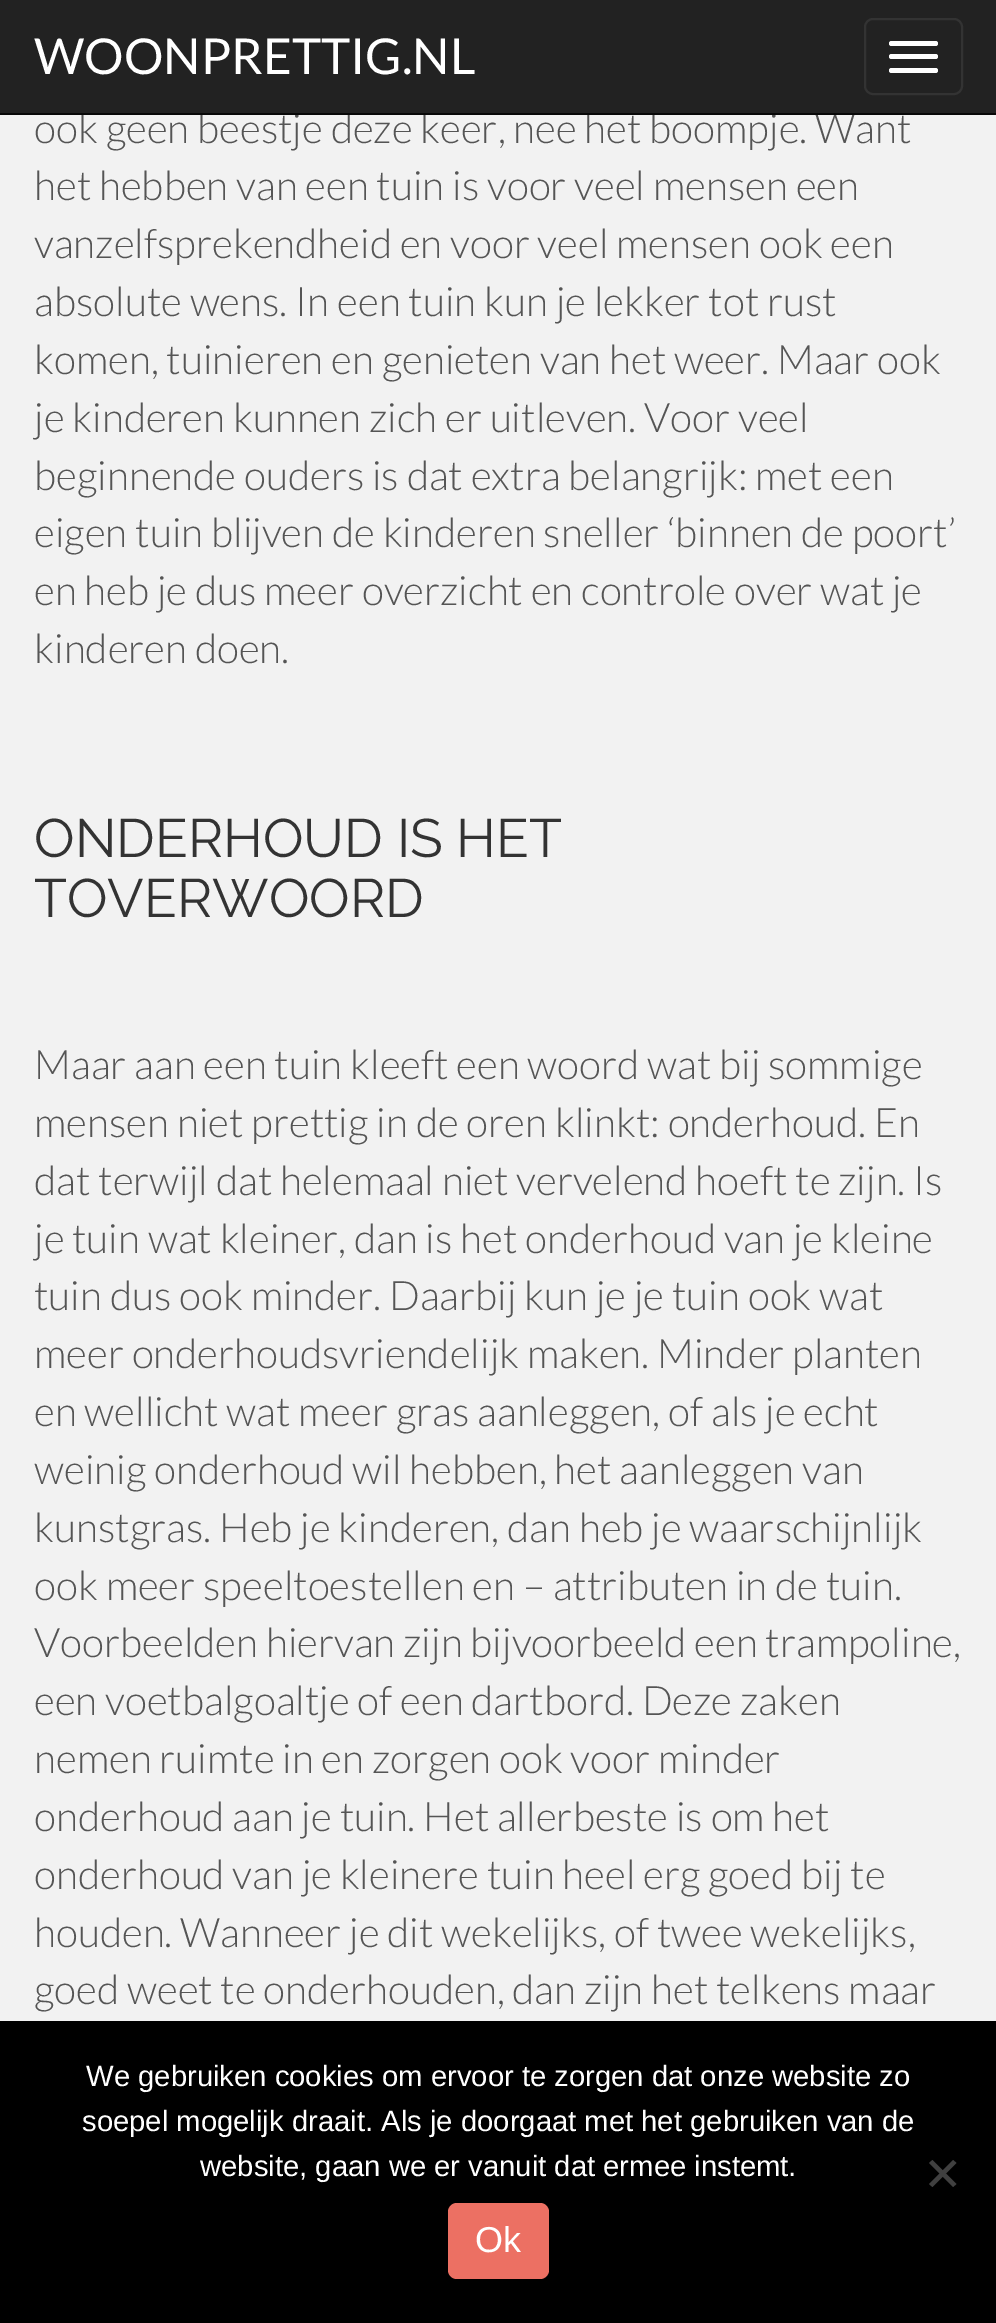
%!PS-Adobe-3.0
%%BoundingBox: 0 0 996 2323
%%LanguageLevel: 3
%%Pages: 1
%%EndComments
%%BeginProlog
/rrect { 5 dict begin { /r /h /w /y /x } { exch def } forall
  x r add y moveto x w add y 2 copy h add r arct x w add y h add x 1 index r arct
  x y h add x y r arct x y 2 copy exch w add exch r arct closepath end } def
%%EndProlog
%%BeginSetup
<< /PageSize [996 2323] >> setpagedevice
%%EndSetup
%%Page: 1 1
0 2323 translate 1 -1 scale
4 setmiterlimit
0.949 setgray
0 0 996 2323 rectfill
0.133 setgray
0 0 996 113 rectfill
0.2 setgray
2 setlinewidth
865 19 97 75 8 rrect stroke
1 setgray
889 41 49 5 2.5 rrect fill
889 54 49 5 2.5 rrect fill
889 68 49 5 2.5 rrect fill
0 setgray
0 2021 996 302 rectfill
0.251 setgray
newpath 953 2160 moveto 956.5 2163 lineto 932.5 2187 lineto 929 2184 lineto closepath fill
newpath 929 2163 moveto 932.5 2160 lineto 956.5 2184 lineto 953 2187 lineto closepath fill
0.925 0.439 0.388 setrgbcolor
448 2203 101 76 9 rrect fill
/Lato-Regular [49.5 0 0 -49.5 0 0] selectfont
1 setgray
34 74 moveto (WOONPRETTIG.NL) show
/Lato-Light [40.5 0 0 -40.5 0 0] selectfont
0.333 setgray
34 143 moveto (ook geen beestje deze keer, nee het boompje. Want) show
0.031 setgray
0 113 996 2 rectfill
0.333 setgray
34 200 moveto (het hebben van een tuin is voor veel mensen een) show
34 258 moveto (vanzelfsprekendheid en voor veel mensen ook een) show
34 316 moveto (absolute wens. In een tuin kun je lekker tot rust) show
34 374 moveto (komen, tuinieren en genieten van het weer. Maar ook) show
34 432 moveto (je kinderen kunnen zich er uitleven. Voor veel) show
34 490 moveto (beginnende ouders is dat extra belangrijk: met een) show
34 547 moveto (eigen tuin blijven de kinderen sneller ‘binnen de poort’) show
34 605 moveto (en heb je dus meer overzicht en controle over wat je) show
34 663 moveto (kinderen doen.) show
/Raleway-Regular [54 0 0 -54 0 0] selectfont
0.2 setgray
34 857 moveto (ONDERHOUD IS HET) show
34 917 moveto (TOVERWOORD) show
/Lato-Light [40.5 0 0 -40.5 0 0] selectfont
0.333 setgray
34 1079 moveto (Maar aan een tuin kleeft een woord wat bij sommige) show
34 1137 moveto (mensen niet prettig in de oren klinkt: onderhoud. En) show
34 1195 moveto (dat terwijl dat helemaal niet vervelend hoeft te zijn. Is) show
34 1253 moveto (je tuin wat kleiner, dan is het onderhoud van je kleine) show
34 1310 moveto (tuin dus ook minder. Daarbij kun je je tuin ook wat) show
34 1368 moveto (meer onderhoudsvriendelijk maken. Minder planten) show
34 1426 moveto (en wellicht wat meer gras aanleggen, of als je echt) show
34 1484 moveto (weinig onderhoud wil hebben, het aanleggen van) show
34 1542 moveto (kunstgras. Heb je kinderen, dan heb je waarschijnlijk) show
34 1600 moveto (ook meer speeltoestellen en – attributen in de tuin.) show
34 1657 moveto (Voorbeelden hiervan zijn bijvoorbeeld een trampoline,) show
34 1715 moveto (een voetbalgoaltje of een dartbord. Deze zaken) show
34 1773 moveto (nemen ruimte in en zorgen ook voor minder) show
34 1831 moveto (onderhoud aan je tuin. Het allerbeste is om het) show
34 1889 moveto (onderhoud van je kleinere tuin heel erg goed bij te) show
34 1947 moveto (houden. Wanneer je dit wekelijks, of twee wekelijks,) show
34 2004 moveto (goed weet te onderhouden, dan zijn het telkens maar) show
/LiberationSans-Regular [29.25 0 0 -29.25 0 0] selectfont
1 setgray
86 2086 moveto (We gebruiken cookies om ervoor te zorgen dat onze website zo) show
82 2131 moveto (soepel mogelijk draait. Als je doorgaat met het gebruiken van de) show
200 2176 moveto (website, gaan we er vanuit dat ermee instemt.) show
/LiberationSans-Regular [36 0 0 -36 0 0] selectfont
475 2252 moveto (Ok) show
showpage
%%EOF
